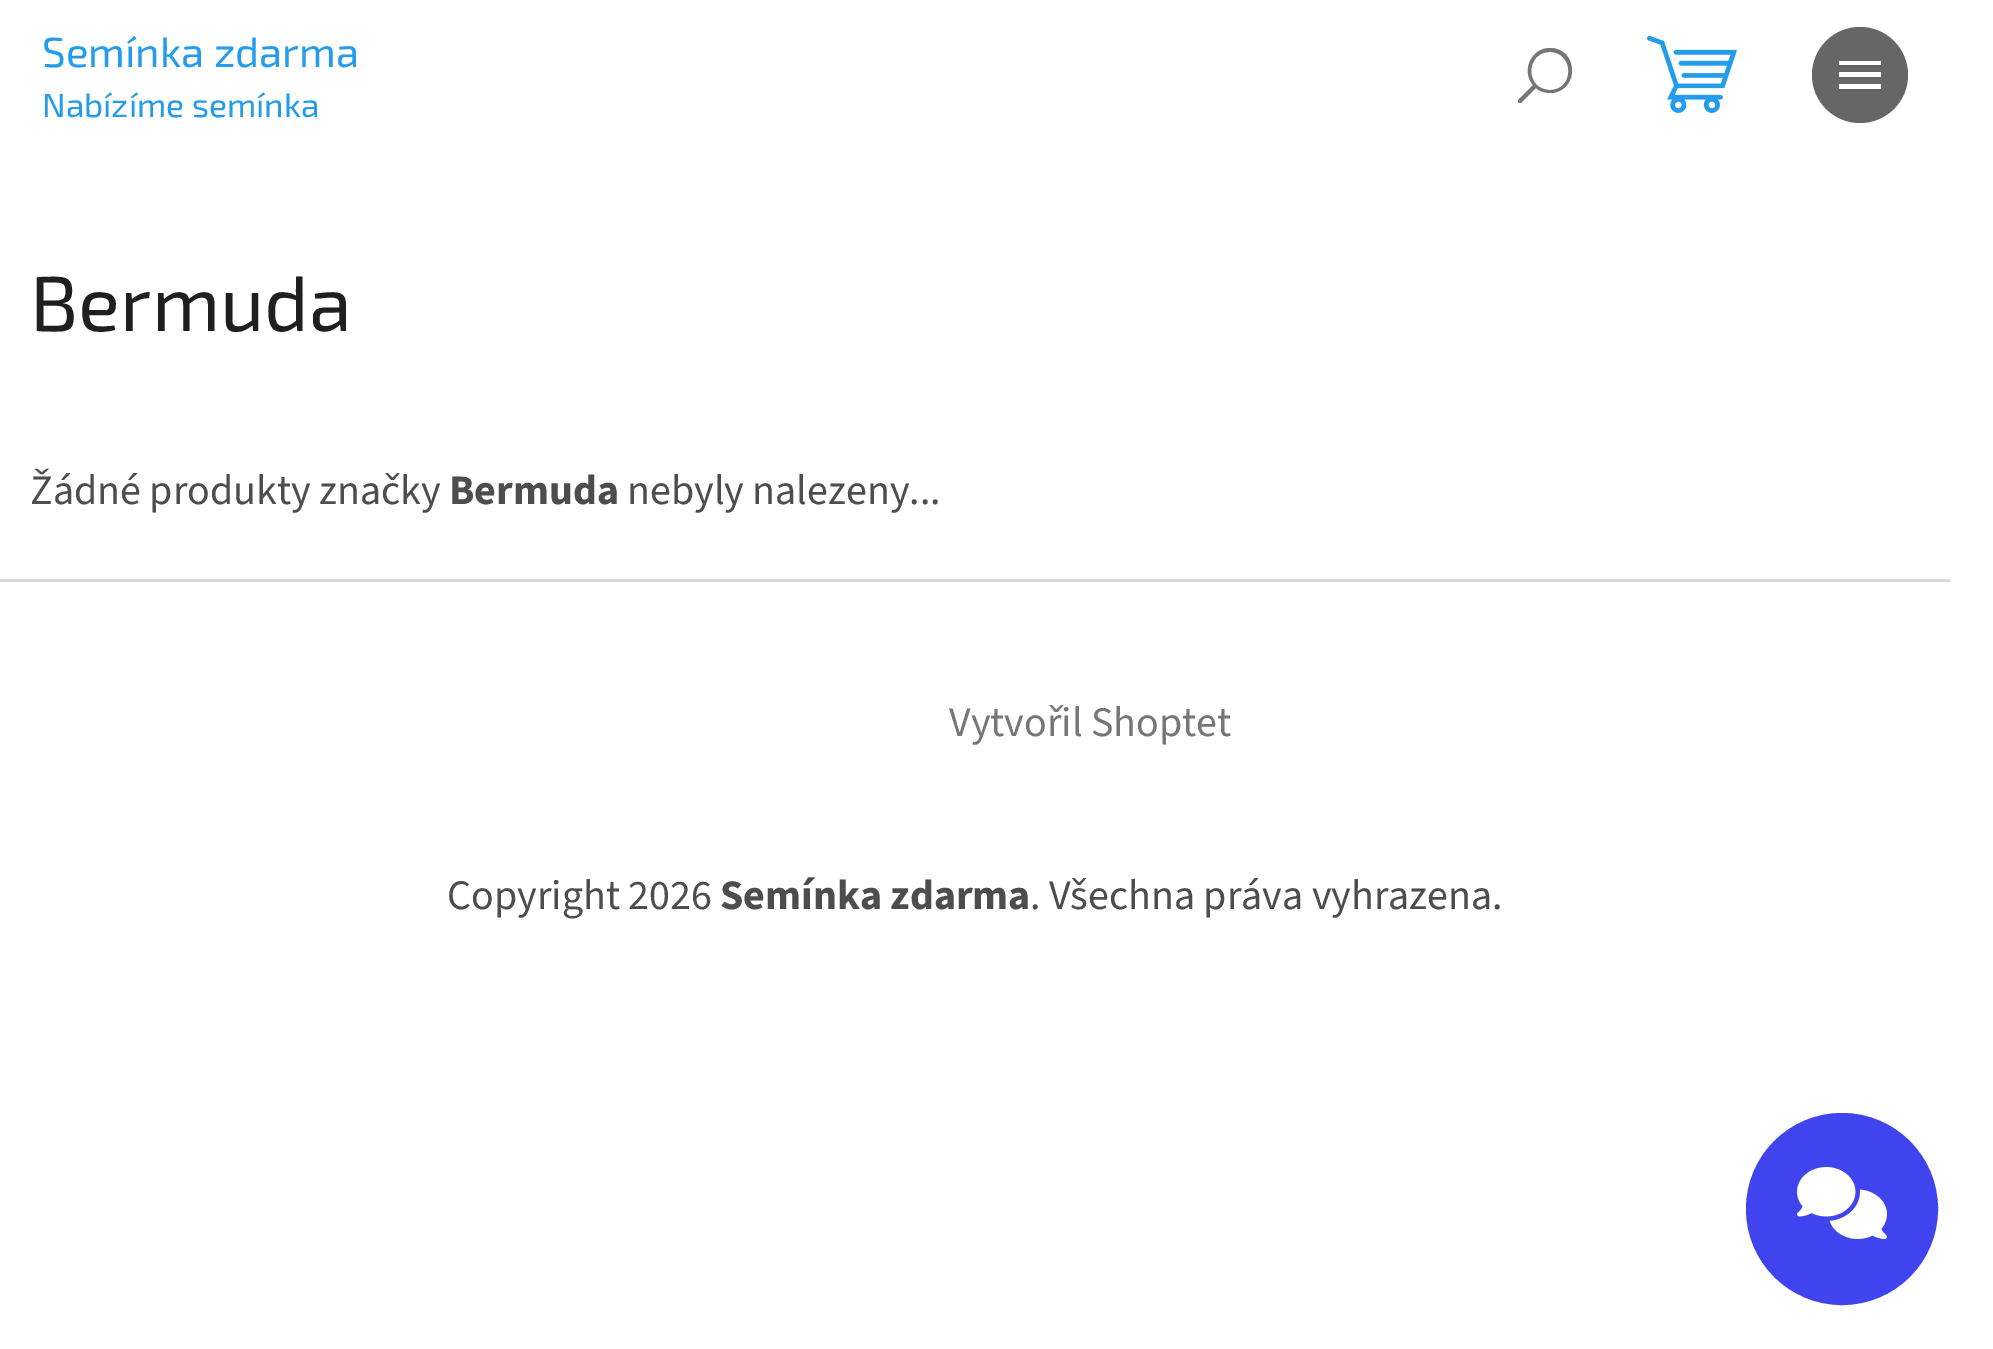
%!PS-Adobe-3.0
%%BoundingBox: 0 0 1993 1349
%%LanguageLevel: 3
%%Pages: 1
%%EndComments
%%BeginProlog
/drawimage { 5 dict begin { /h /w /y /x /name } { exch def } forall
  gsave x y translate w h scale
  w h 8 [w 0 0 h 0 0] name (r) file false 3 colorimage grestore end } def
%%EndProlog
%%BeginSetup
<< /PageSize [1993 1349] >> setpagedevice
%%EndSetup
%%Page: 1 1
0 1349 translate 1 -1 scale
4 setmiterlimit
1 setgray
0 0 1993 1349 rectfill
(images/1.raw) 1647 35 90 78 drawimage
0.463 setgray
newpath 1550 48 moveto 1531 48 1521 71 1533 85 curveto 1518 100 lineto 1518 101 1518 103 1520 103 curveto 1521 103 lineto 1536 88 lineto 1540 92 1546 93 1552 93 curveto 1580 90 1578 48 1550 48 curveto closepath 1550 52 moveto 1574 52 1575 90 1550 90 curveto 1525 90 1525 52 1550 52 curveto closepath fill
0.4 setgray
newpath 1860 75 48 0 360 arc closepath fill
1 setgray
newpath 1839 89 moveto 1881 89 lineto 1881 84 lineto 1839 84 lineto closepath 1839 77 moveto 1881 77 lineto 1881 72 lineto 1839 72 lineto closepath 1839 61 moveto 1839 65 lineto 1881 65 lineto 1881 61 lineto closepath fill
0.855 setgray
0 579 1950 3 rectfill
0.251 0.267 0.933 setrgbcolor
newpath 1842 1209 90 0 360 arc closepath gsave fill grestore
12 setlinewidth
stroke
(images/2.raw) 1797 1167 90 72 drawimage
/Exo2-Regular [42 0 0 -42 0 0] selectfont
0.137 0.612 0.922 setrgbcolor
42 67 moveto (Semínka zdarma) show
/Exo2-Regular [33.5 0 0 -33.5 0 0] selectfont
42 117 moveto (Nabízíme semínka) show
/Exo2-Regular [78 0 0 -78 0 0] selectfont
0.122 setgray
30 331 moveto (Bermuda) show
/SourceSans3-Regular [42 0 0 -42 0 0] selectfont
0.302 setgray
30 504 moveto (Žádné produkty značky) show
/SourceSans3-Bold [42 0 0 -42 0 0] selectfont
449 504 moveto (Bermuda) show
/SourceSans3-Regular [42 0 0 -42 0 0] selectfont
627 504 moveto (nebyly nalezeny...) show
0.463 setgray
949 736 moveto (Vytvořil Shoptet) show
0.302 setgray
447 909 moveto (Copyright 2026) show
/SourceSans3-Bold [42 0 0 -42 0 0] selectfont
720 909 moveto (Semínka zdarma) show
/SourceSans3-Regular [42 0 0 -42 0 0] selectfont
1030 909 moveto (. Všechna práva vyhrazena.) show
showpage
%%EOF
